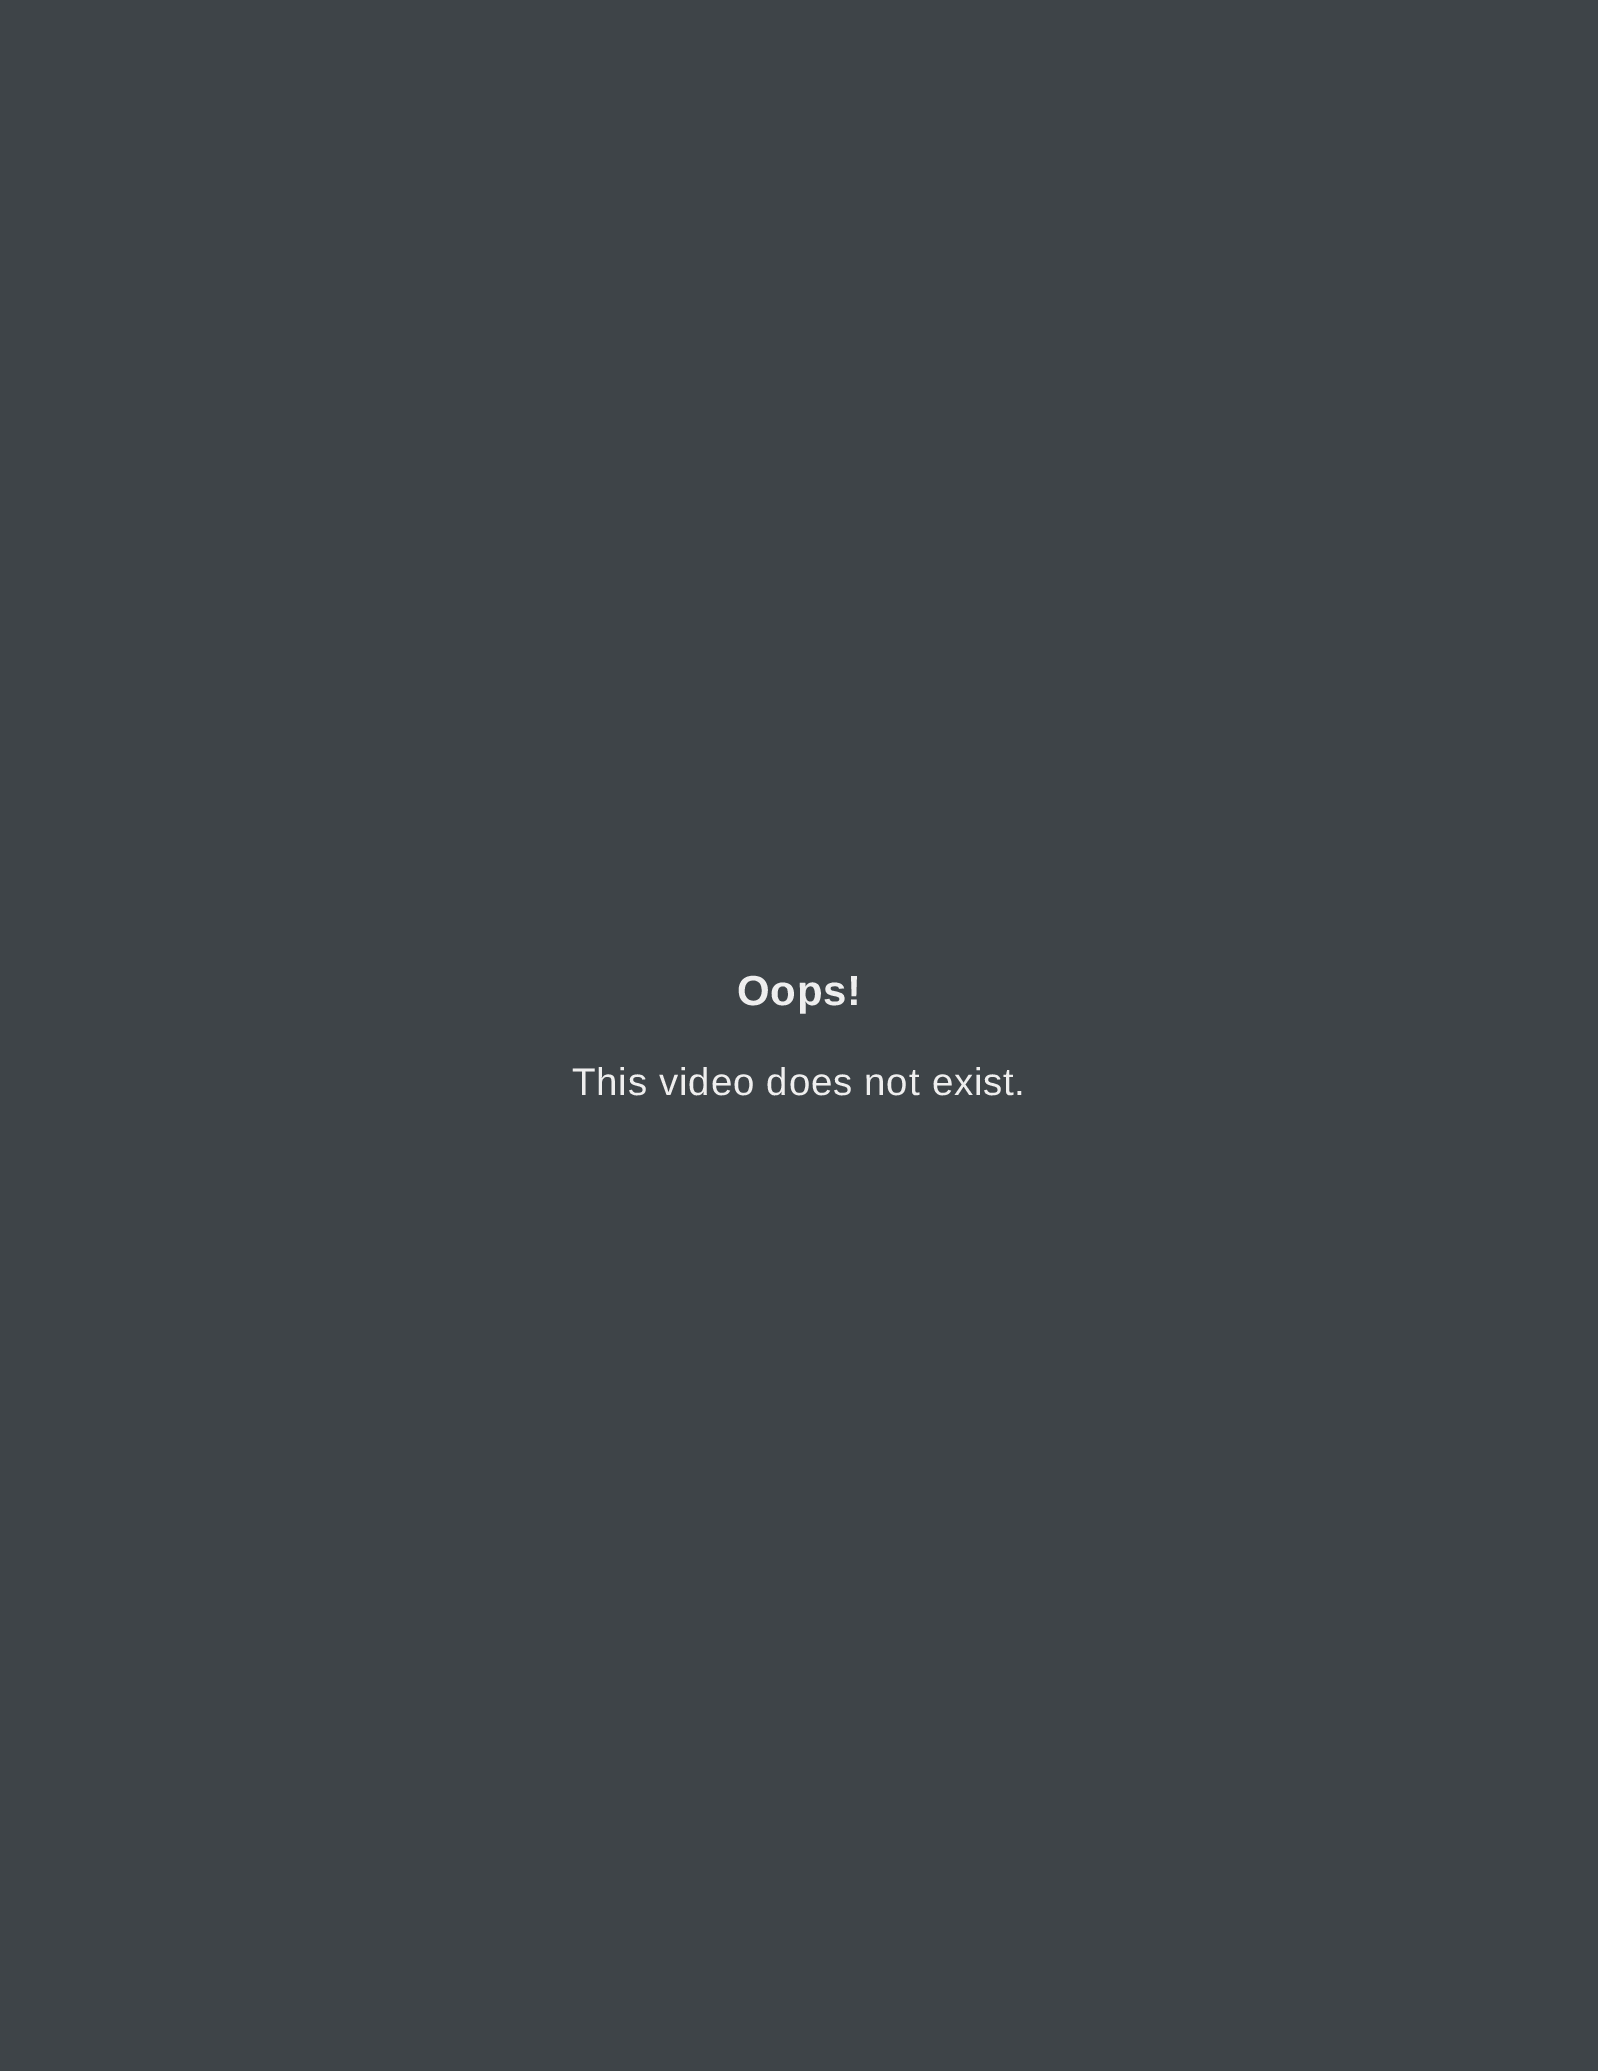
%!PS-Adobe-3.0
%%BoundingBox: 0 0 1598 2071
%%LanguageLevel: 3
%%Pages: 1
%%EndComments
%%BeginProlog
%%EndProlog
%%BeginSetup
<< /PageSize [1598 2071] >> setpagedevice
%%EndSetup
%%Page: 1 1
0 2071 translate 1 -1 scale
4 setmiterlimit
0.243 0.267 0.282 setrgbcolor
0 0 1598 2071 rectfill
/LiberationSans-Bold [42 0 0 -42 0 0] selectfont
0.933 setgray
737 1005 moveto 0.75 0 (Oops!) ashow
/LiberationSans-Regular [38.5 0 0 -38.5 0 0] selectfont
572 1095 moveto 0.75 0 (This video does not exist.) ashow
showpage
%%EOF
